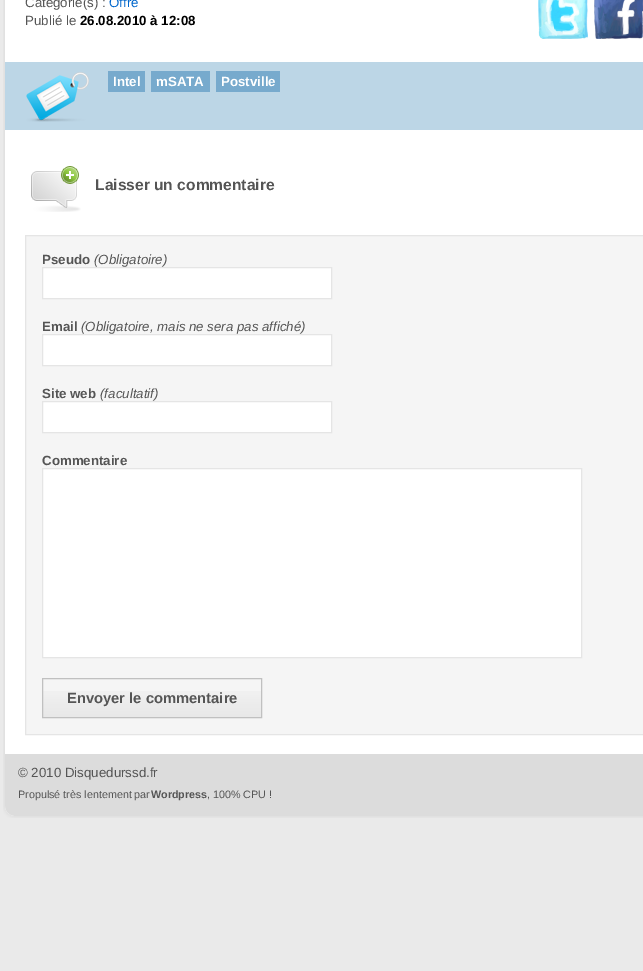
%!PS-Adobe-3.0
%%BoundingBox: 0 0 643 971
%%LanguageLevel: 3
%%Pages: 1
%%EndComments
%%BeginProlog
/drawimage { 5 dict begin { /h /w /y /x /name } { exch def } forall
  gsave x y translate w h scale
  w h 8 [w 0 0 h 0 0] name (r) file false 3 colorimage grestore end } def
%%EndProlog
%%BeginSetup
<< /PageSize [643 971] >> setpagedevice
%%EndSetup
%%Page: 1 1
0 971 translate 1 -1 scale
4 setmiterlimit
0.918 setgray
0 0 643 971 rectfill
(images/1.raw) 3 0 640 754 drawimage
(images/2.raw) 538 0 50 39 drawimage
(images/3.raw) 594 0 49 39 drawimage
0.737 0.839 0.902 setrgbcolor
5 62 638 68 rectfill
(images/4.raw) 26 72 63 50 drawimage
0.467 0.667 0.804 setrgbcolor
108 71 37 21 rectfill
151 71 59 21 rectfill
216 71 64 21 rectfill
(images/5.raw) 31 166 50 46 drawimage
0.961 setgray
newpath 25.5 235.5 moveto 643.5 235.5 lineto 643.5 734.5 lineto 25.5 734.5 lineto closepath gsave fill grestore
0.898 setgray
stroke
1 setgray
newpath 42.5 267.5 moveto 331.5 267.5 lineto 331.5 298.5 lineto 42.5 298.5 lineto closepath gsave fill grestore
0.898 setgray
stroke
1 setgray
newpath 42.5 334.5 moveto 331.5 334.5 lineto 331.5 365.5 lineto 42.5 365.5 lineto closepath gsave fill grestore
0.898 setgray
stroke
1 setgray
newpath 42.5 401.5 moveto 331.5 401.5 lineto 331.5 432.5 lineto 42.5 432.5 lineto closepath gsave fill grestore
0.898 setgray
stroke
1 setgray
newpath 42.5 468.5 moveto 581.5 468.5 lineto 581.5 657.5 lineto 42.5 657.5 lineto closepath gsave fill grestore
0.898 setgray
stroke
(images/6.raw) 43 691 218 26 drawimage
0.753 setgray
42.5 678.5 219 39 rectstroke
(images/7.raw) 3 754 640 64 drawimage
/LiberationSans-Regular [13.3 0 0 -13.3 0 0] selectfont
0.333 setgray
25 7 moveto (Catégorie\(s\) :) show
0 0.4 0.8 setrgbcolor
109 7 moveto (Offre) show
0.333 setgray
25 25 moveto (Publié le) show
/LiberationSans-Bold [13.3 0 0 -13.3 0 0] selectfont
0 setgray
80 25 moveto (26.08.2010 à 12:08) show
1 setgray
113 86 moveto (Intel) show
156 86 moveto (mSATA) show
221 86 moveto (Postville) show
/LiberationSans-Bold [15.6 0 0 -15.6 0 0] selectfont
0.333 setgray
95 190 moveto (Laisser un commentaire) show
/LiberationSans-Bold [13.3 0 0 -13.3 0 0] selectfont
42 264 moveto (Pseudo) show
/LiberationSans-Italic [13.3 0 0 -13.3 0 0] selectfont
94 264 moveto (\(Obligatoire\)) show
/LiberationSans-Bold [13.3 0 0 -13.3 0 0] selectfont
42 331 moveto (Email) show
/LiberationSans-Italic [13.3 0 0 -13.3 0 0] selectfont
81 331 moveto (\(Obligatoire, mais ne sera pas affiché\)) show
/LiberationSans-Bold [13.3 0 0 -13.3 0 0] selectfont
42 398 moveto (Site web) show
/LiberationSans-Italic [13.3 0 0 -13.3 0 0] selectfont
100 398 moveto (\(facultatif\)) show
/LiberationSans-Bold [13.3 0 0 -13.3 0 0] selectfont
42 465 moveto (Commentaire) show
/LiberationSans-Bold [14.75 0 0 -14.75 0 0] selectfont
67 703 moveto (Envoyer le commentaire) show
/LiberationSans-Regular [13.3 0 0 -13.3 0 0] selectfont
18 777 moveto (© 2010 Disquedurssd.fr) show
/LiberationSans-Regular [10.75 0 0 -10.75 0 0] selectfont
18 798 moveto (Propulsé très lentement par) show
/LiberationSans-Bold [10.75 0 0 -10.75 0 0] selectfont
151 798 moveto (Wordpress) show
/LiberationSans-Regular [10.75 0 0 -10.75 0 0] selectfont
207 798 moveto (, 100% CPU !) show
showpage
%%EOF
